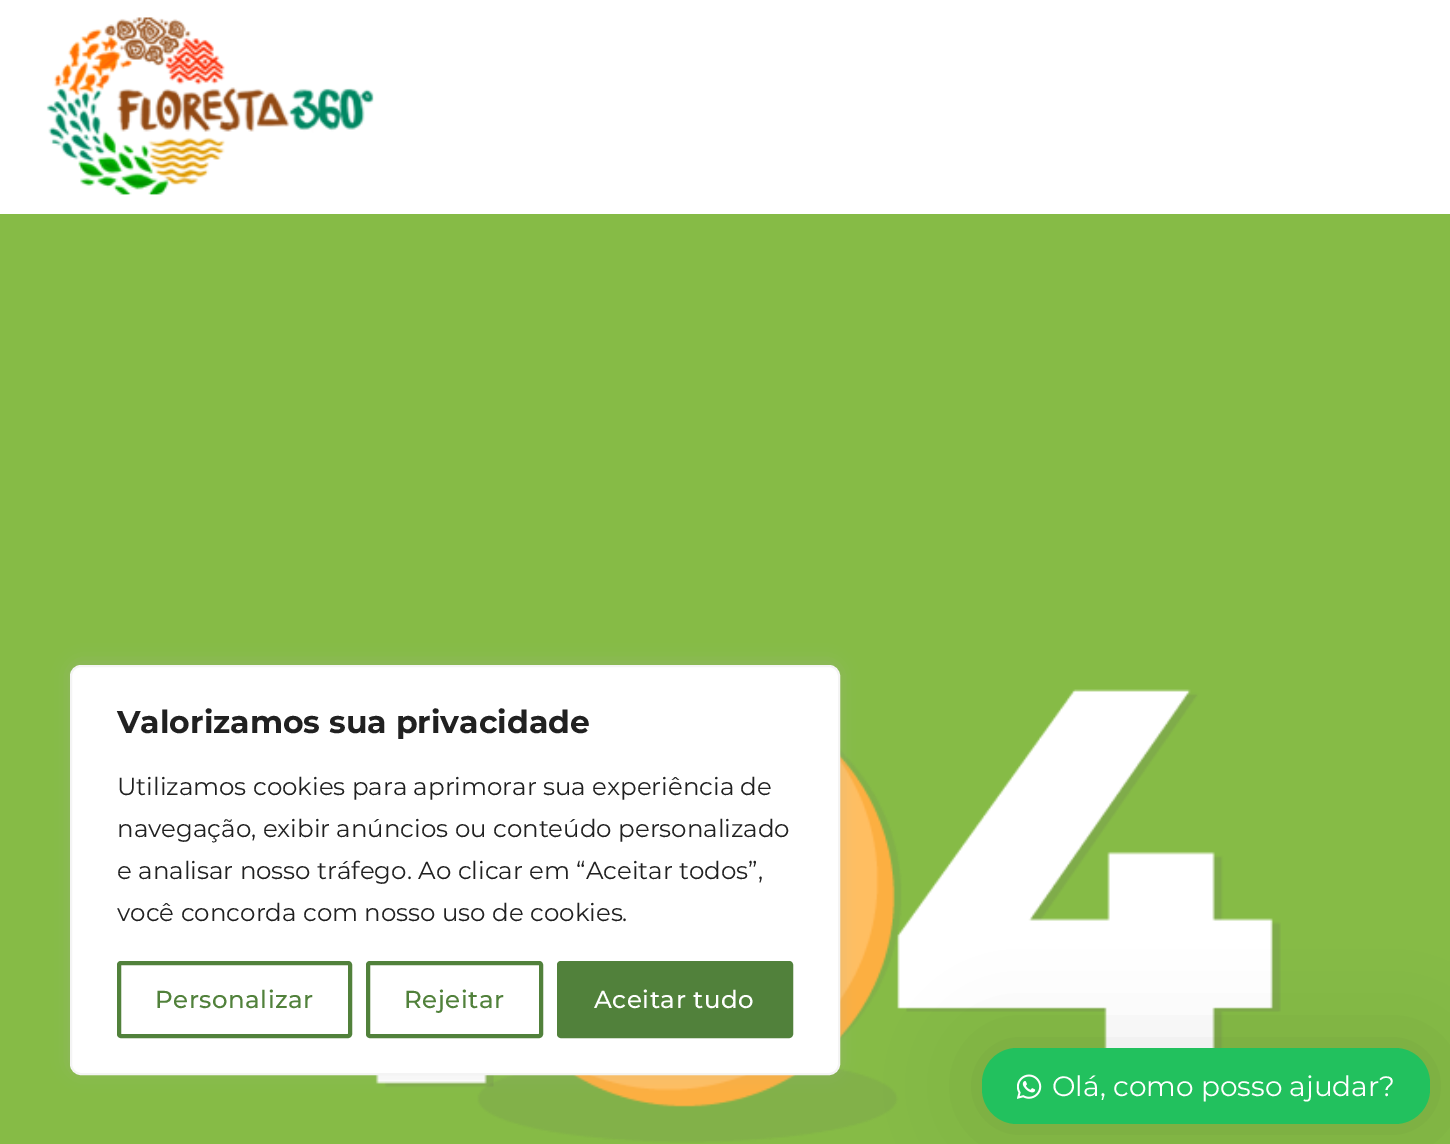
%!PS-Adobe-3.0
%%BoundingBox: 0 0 1450 1144
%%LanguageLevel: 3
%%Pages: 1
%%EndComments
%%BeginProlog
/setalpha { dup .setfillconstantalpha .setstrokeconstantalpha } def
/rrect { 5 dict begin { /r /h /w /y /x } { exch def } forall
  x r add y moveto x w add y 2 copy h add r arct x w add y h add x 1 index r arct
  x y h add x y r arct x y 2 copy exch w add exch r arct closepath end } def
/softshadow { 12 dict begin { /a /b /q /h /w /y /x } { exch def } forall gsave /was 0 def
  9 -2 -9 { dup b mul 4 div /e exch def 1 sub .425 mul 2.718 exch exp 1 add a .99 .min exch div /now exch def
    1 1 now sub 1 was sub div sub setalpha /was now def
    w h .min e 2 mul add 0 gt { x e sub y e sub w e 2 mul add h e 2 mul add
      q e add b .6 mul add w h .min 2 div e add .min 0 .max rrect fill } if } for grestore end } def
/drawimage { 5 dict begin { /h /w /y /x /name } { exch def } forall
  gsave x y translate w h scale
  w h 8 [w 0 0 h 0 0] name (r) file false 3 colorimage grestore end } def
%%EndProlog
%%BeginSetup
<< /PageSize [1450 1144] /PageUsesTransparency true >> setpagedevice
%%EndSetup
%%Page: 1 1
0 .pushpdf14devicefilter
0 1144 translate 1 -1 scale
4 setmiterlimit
1 setgray
0 0 1450 1144 rectfill
(images/1.raw) 46 17 328 178 drawimage
0.525 0.733 0.275 setrgbcolor
0 214 1450 930 rectfill
(images/2.raw) 375 689 906 454 drawimage
0.675 0.671 0.671 setrgbcolor
70 663 770 410 11 9 0.3 softshadow
1 setgray
71 666 768 408 10 rrect gsave fill grestore
0.957 setgray
2 setlinewidth
stroke
0.318 0.506 0.231 setrgbcolor
4 setlinewidth
119 963 231 73 2 rrect stroke
368 963 173 73 2 rrect stroke
559 963 232 73 2 rrect gsave fill grestore
stroke
0 setgray
982 1048 448 76 35 44 0.1 softshadow
0.133 0.757 0.369 setrgbcolor
982 1048 448 76 35 rrect fill
(images/3.raw) 1017 1074 25 25 drawimage
/Montserrat-Bold [31.5 0 0 -31.5 0 0] selectfont
0.129 setgray
117 733 moveto (Valorizamos sua privacidade) show
/Montserrat-Regular [24.5 0 0 -24.5 0 0] selectfont
117 795 moveto (Utilizamos cookies para aprimorar sua experiência de) show
117 837 moveto (navegação, exibir anúncios ou conteúdo personalizado) show
117 879 moveto (e analisar nosso tráfego. Ao clicar em “Aceitar todos”,) show
117 921 moveto (você concorda com nosso uso de cookies.) show
/Montserrat-Medium [24.5 0 0 -24.5 0 0] selectfont
0.318 0.506 0.231 setrgbcolor
155 1008 moveto 0.5 0 (Personalizar) ashow
404 1008 moveto 0.5 0 (Rejeitar) ashow
1 setgray
594 1008 moveto 0.5 0 (Aceitar tudo) ashow
/Montserrat-Regular [28 0 0 -28 0 0] selectfont
1052 1096 moveto (Olá, como posso ajudar?) show
.poppdf14devicefilter showpage
%%EOF
